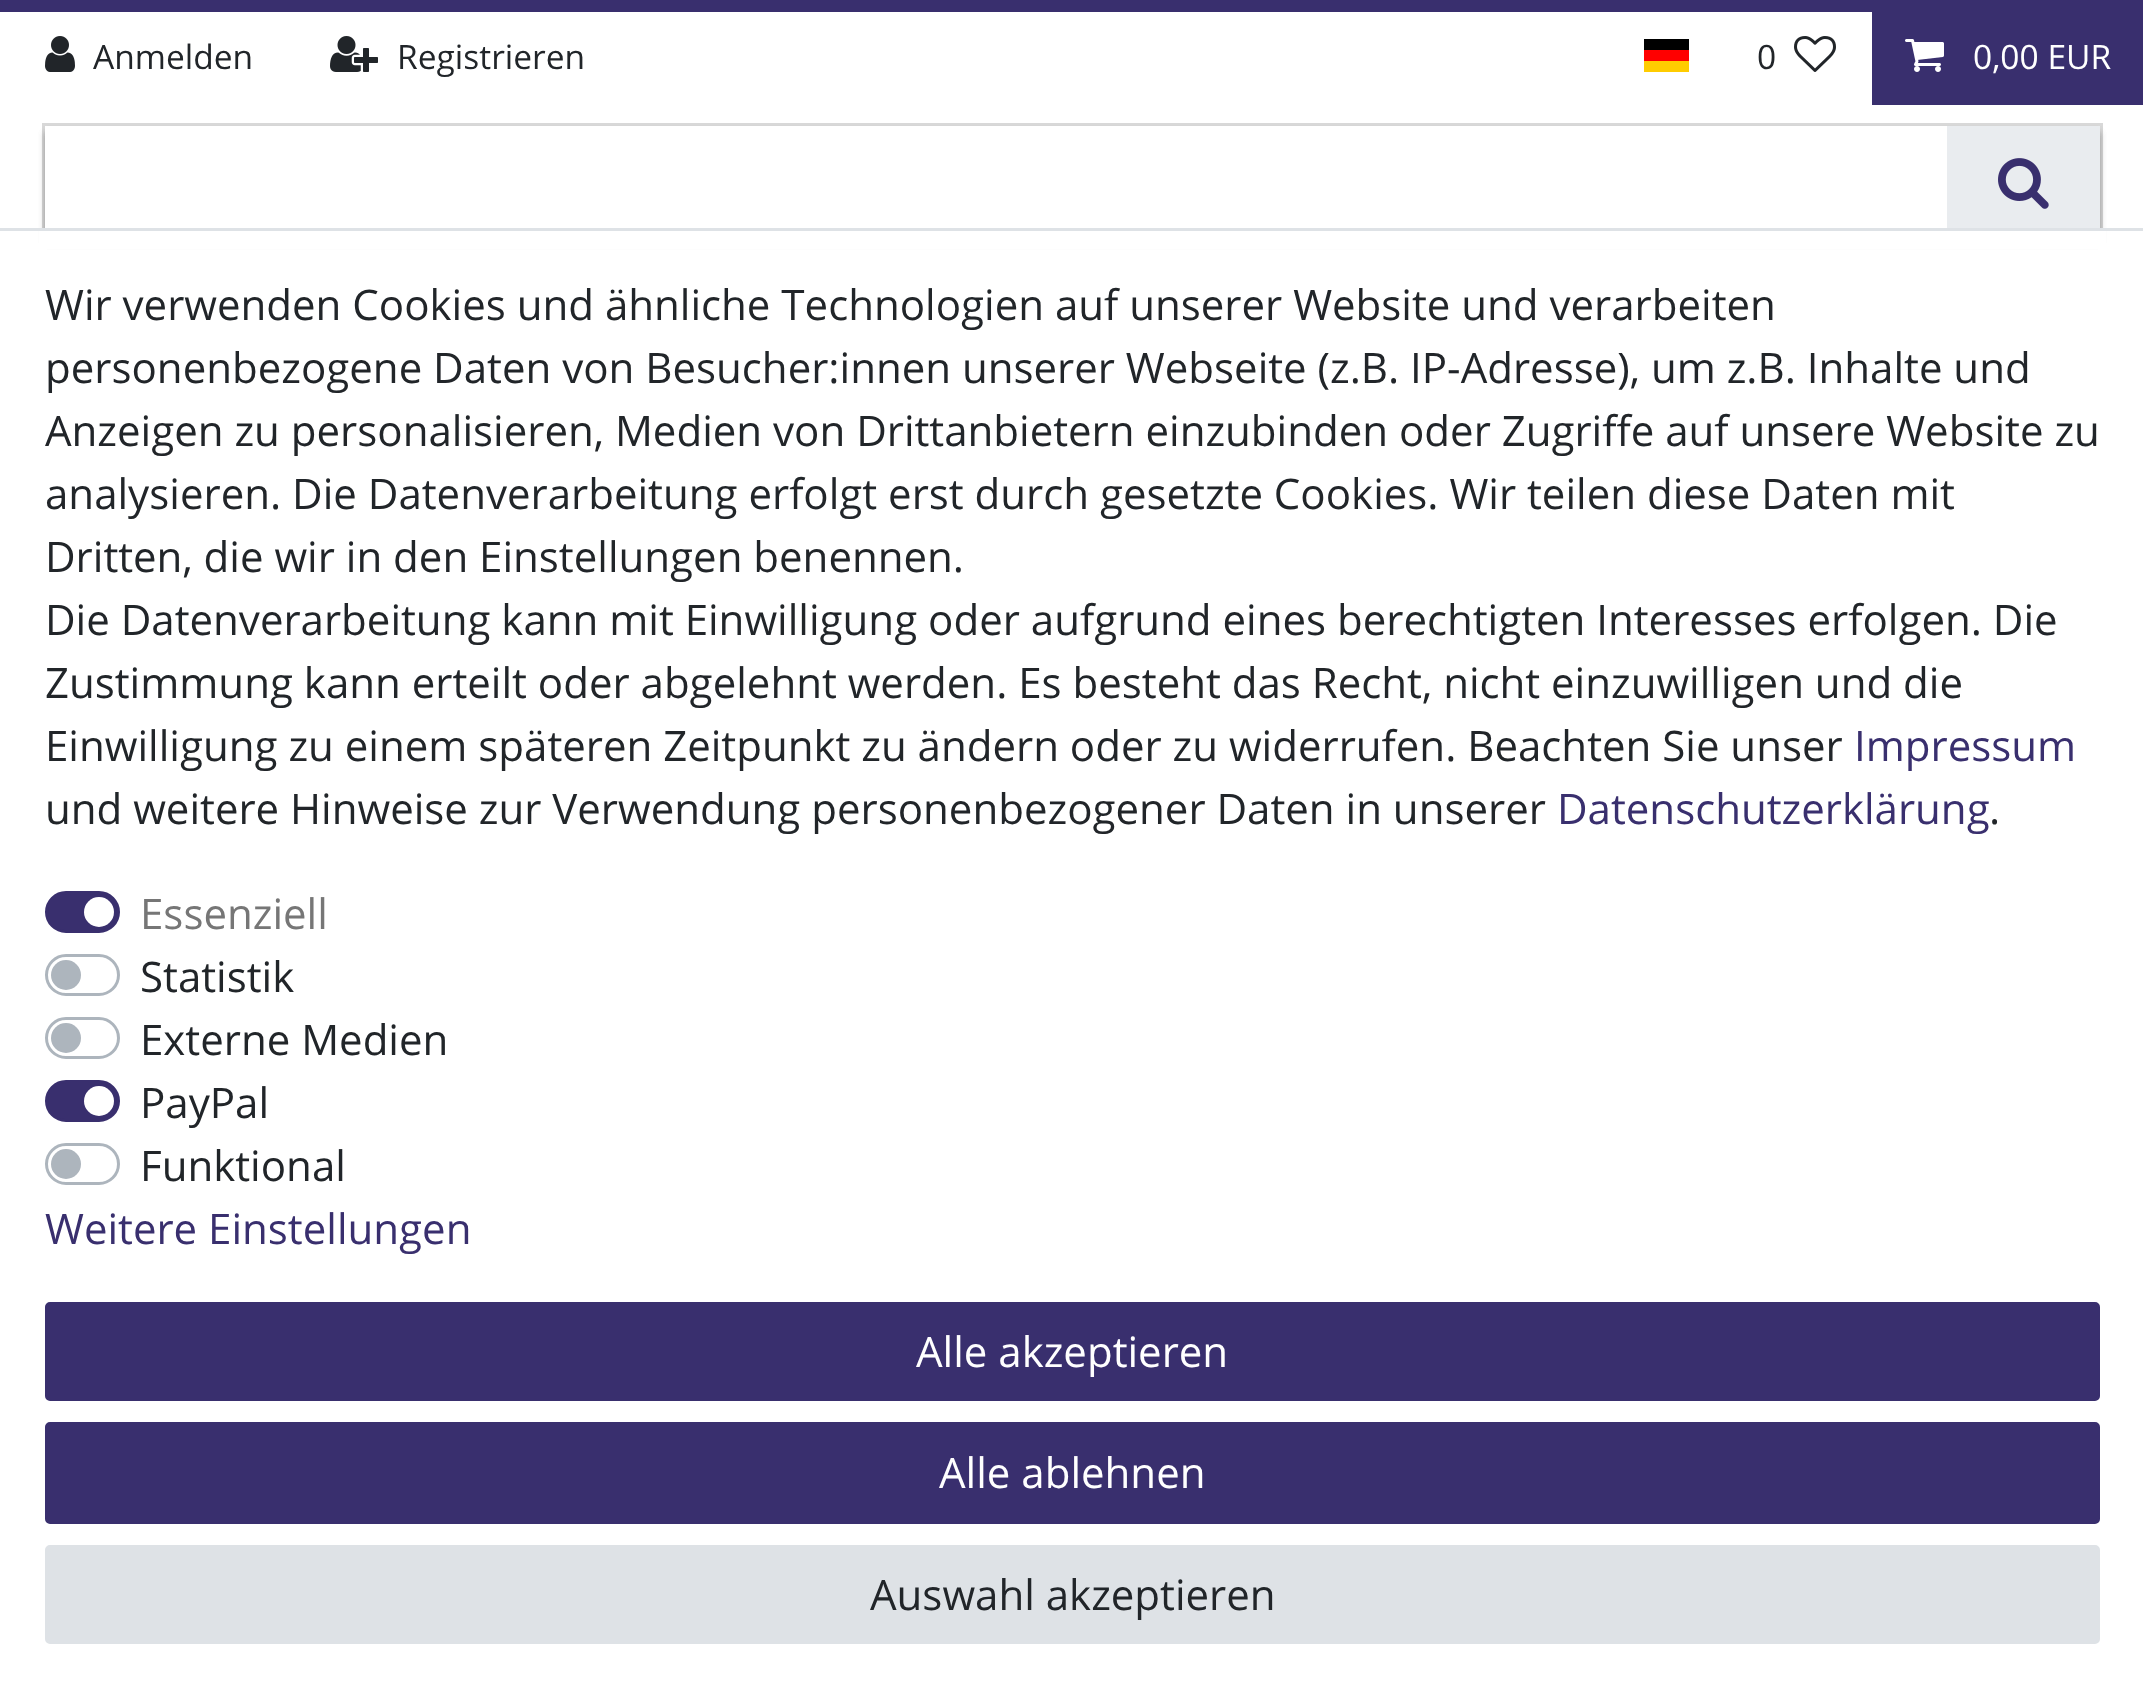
(async () => {
  const canvas = document.querySelector("canvas");
  canvas.width = 2143;
  canvas.height = 1705;
  const ctx = canvas.getContext("2d");
  ctx.miterLimit = 4;
  ctx.fontKerning = "normal";
  async function loadImage(src) {
    const img = new Image();
    img.src = src;
    await img.decode();
    return img;
  }
  let path;

  ctx.fillStyle = "#ffffff";
  ctx.fillRect(0, 0, 2143, 1705);
  ctx.fillStyle = "#392f6e";
  ctx.fillRect(0, 0, 2143, 12);
  ctx.drawImage(await loadImage("img/1.png"), 45, 36, 30, 36);
  ctx.drawImage(await loadImage("img/2.png"), 330, 36, 48, 36);
  for (const [x, y, w, h, color] of [
    [1644, 61, 45, 11, "#ffcc00"],
    [1644, 39, 45, 11, "#000000"],
    [1644, 50, 45, 11, "#ff0000"],
  ]) {
    ctx.fillStyle = color;
    ctx.fillRect(x, y, w, h);
  }
  ctx.drawImage(await loadImage("img/3.png"), 1794, 36, 42, 36);
  ctx.fillStyle = "#392f6e";
  ctx.fillRect(1872, 12, 271, 93);
  ctx.drawImage(await loadImage("img/4.png"), 1905, 39, 39, 33);
  ctx.strokeStyle = "#ebebeb";
  ctx.lineWidth = 3;
  ctx.strokeRect(43.5, 124.5, 2058, 114);
  ctx.save();
  path = new Path2D("M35 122H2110V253H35ZM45 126H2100V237H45Z");
  ctx.clip(path, "evenodd");
  ctx.fillStyle = "rgba(0, 0, 0, 0.16)";
  ctx.filter = "blur(3px)";
  ctx.beginPath();
  ctx.rect(45, 132, 2055, 111);
  ctx.fill();
  ctx.filter = "none";
  ctx.restore();
  ctx.strokeStyle = "rgba(0, 0, 0, 0.08)";
  ctx.strokeRect(43.5, 124.5, 2058, 114);
  ctx.save();
  path = new Path2D("M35 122H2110V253H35ZM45 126H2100V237H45Z");
  ctx.clip(path, "evenodd");
  ctx.fillStyle = "rgba(0, 0, 0, 0.16)";
  ctx.filter = "blur(3px)";
  ctx.beginPath();
  ctx.rect(45, 132, 2055, 111);
  ctx.fill();
  ctx.filter = "none";
  ctx.restore();
  ctx.fillStyle = "#e9ecef";
  ctx.fillRect(1947, 126, 153, 102);
  ctx.drawImage(await loadImage("img/5.png"), 1998, 158, 51, 51);
  ctx.fillStyle = "#ffffff";
  ctx.fillRect(39, 231, 2067, 18);
  ctx.fillStyle = "#dee2e6";
  ctx.fillRect(0, 228, 2143, 3);
  ctx.fillStyle = "#392f6e";
  ctx.beginPath();
  ctx.roundRect(46.5, 892.5, 72, 39, 19.5);
  ctx.fill();
  ctx.strokeStyle = "#392f6e";
  ctx.stroke();
  ctx.fillStyle = "#ffffff";
  ctx.beginPath();
  ctx.arc(99, 912, 15, 0, Math.PI * 2);
  ctx.fill();
  ctx.beginPath();
  ctx.roundRect(46.5, 955.5, 72, 39, 19.5);
  ctx.strokeStyle = "#adb5bd";
  ctx.stroke();
  ctx.fillStyle = "#adb5bd";
  ctx.beginPath();
  ctx.arc(66, 975, 15, 0, Math.PI * 2);
  ctx.fill();
  ctx.beginPath();
  ctx.roundRect(46.5, 1018.5, 72, 39, 19.5);
  ctx.stroke();
  ctx.beginPath();
  ctx.arc(66, 1038, 15, 0, Math.PI * 2);
  ctx.fill();
  ctx.fillStyle = "#392f6e";
  ctx.beginPath();
  ctx.roundRect(46.5, 1081.5, 72, 39, 19.5);
  ctx.fill();
  ctx.strokeStyle = "#392f6e";
  ctx.stroke();
  ctx.fillStyle = "#ffffff";
  ctx.beginPath();
  ctx.arc(99, 1101, 15, 0, Math.PI * 2);
  ctx.fill();
  ctx.beginPath();
  ctx.roundRect(46.5, 1144.5, 72, 39, 19.5);
  ctx.strokeStyle = "#adb5bd";
  ctx.stroke();
  ctx.fillStyle = "#adb5bd";
  ctx.beginPath();
  ctx.arc(66, 1164, 15, 0, Math.PI * 2);
  ctx.fill();
  ctx.fillStyle = "#392f6e";
  ctx.beginPath();
  ctx.roundRect(46.5, 1303.5, 2052, 96, 3.5);
  ctx.fill();
  ctx.strokeStyle = "#392f6e";
  ctx.stroke();
  ctx.beginPath();
  ctx.roundRect(46.5, 1423.5, 2052, 99, 3.5);
  ctx.fill();
  ctx.stroke();
  ctx.fillStyle = "#dee2e6";
  ctx.beginPath();
  ctx.roundRect(46.5, 1546.5, 2052, 96, 3.5);
  ctx.fill();
  ctx.strokeStyle = "#dee2e6";
  ctx.stroke();
  ctx.font = "33.5px Open Sans";
  ctx.fillStyle = "#212529";
  for (const [text, x, y] of [
    ["Anmelden", 93, 69],
    ["Registrieren", 397, 69],
    ["0", 1757, 69],
  ]) {
    ctx.fillText(text, x, y);
  }
  ctx.fillStyle = "#ffffff";
  ctx.fillText("0,00 EUR", 1973, 69);
  ctx.font = "42px Open Sans";
  ctx.fillStyle = "#212529";
  for (const [text, x, y] of [
    ["Wir verwenden Cookies und ähnliche Technologien auf unserer Website und verarbeiten", 45, 320],
    ["personenbezogene Daten von Besucher:innen unserer Webseite (z.B. IP-Adresse), um z.B. Inhalte und", 45, 383],
    ["Anzeigen zu personalisieren, Medien von Drittanbietern einzubinden oder Zugriffe auf unsere Website zu", 45, 446],
    ["analysieren. Die Datenverarbeitung erfolgt erst durch gesetzte Cookies. Wir teilen diese Daten mit", 45, 509],
    ["Dritten, die wir in den Einstellungen benennen.", 45, 572],
    ["Die Datenverarbeitung kann mit Einwilligung oder aufgrund eines berechtigten Interesses erfolgen. Die", 45, 635],
    ["Zustimmung kann erteilt oder abgelehnt werden. Es besteht das Recht, nicht einzuwilligen und die", 45, 698],
    ["Einwilligung zu einem späteren Zeitpunkt zu ändern oder zu widerrufen. Beachten Sie unser", 45, 761],
  ]) {
    ctx.fillText(text, x, y);
  }
  ctx.fillStyle = "#392f6e";
  ctx.fillText("Impressum", 1854, 761);
  ctx.fillStyle = "#212529";
  ctx.fillText("und weitere Hinweise zur Verwendung personenbezogener Daten in unserer", 45, 824);
  ctx.fillStyle = "#392f6e";
  ctx.fillText("Datenschutzerklärung", 1557, 824);
  ctx.fillStyle = "#212529";
  ctx.fillText(".", 1989, 824);
  ctx.fillStyle = "#767676";
  ctx.fillText("Essenziell", 140, 929);
  ctx.fillStyle = "#212529";
  for (const [text, x, y] of [
    ["Statistik", 140, 992],
    ["Externe Medien", 140, 1055],
    ["PayPal", 140, 1118],
    ["Funktional", 140, 1181],
  ]) {
    ctx.fillText(text, x, y);
  }
  ctx.fillStyle = "#392f6e";
  ctx.fillText("Weitere Einstellungen", 45, 1244);
  ctx.fillStyle = "#ffffff";
  ctx.fillText("Alle akzeptieren", 916, 1367);
  ctx.fillText("Alle ablehnen", 939, 1488);
  ctx.fillStyle = "#212529";
  ctx.fillText("Auswahl akzeptieren", 870, 1610);
})();
